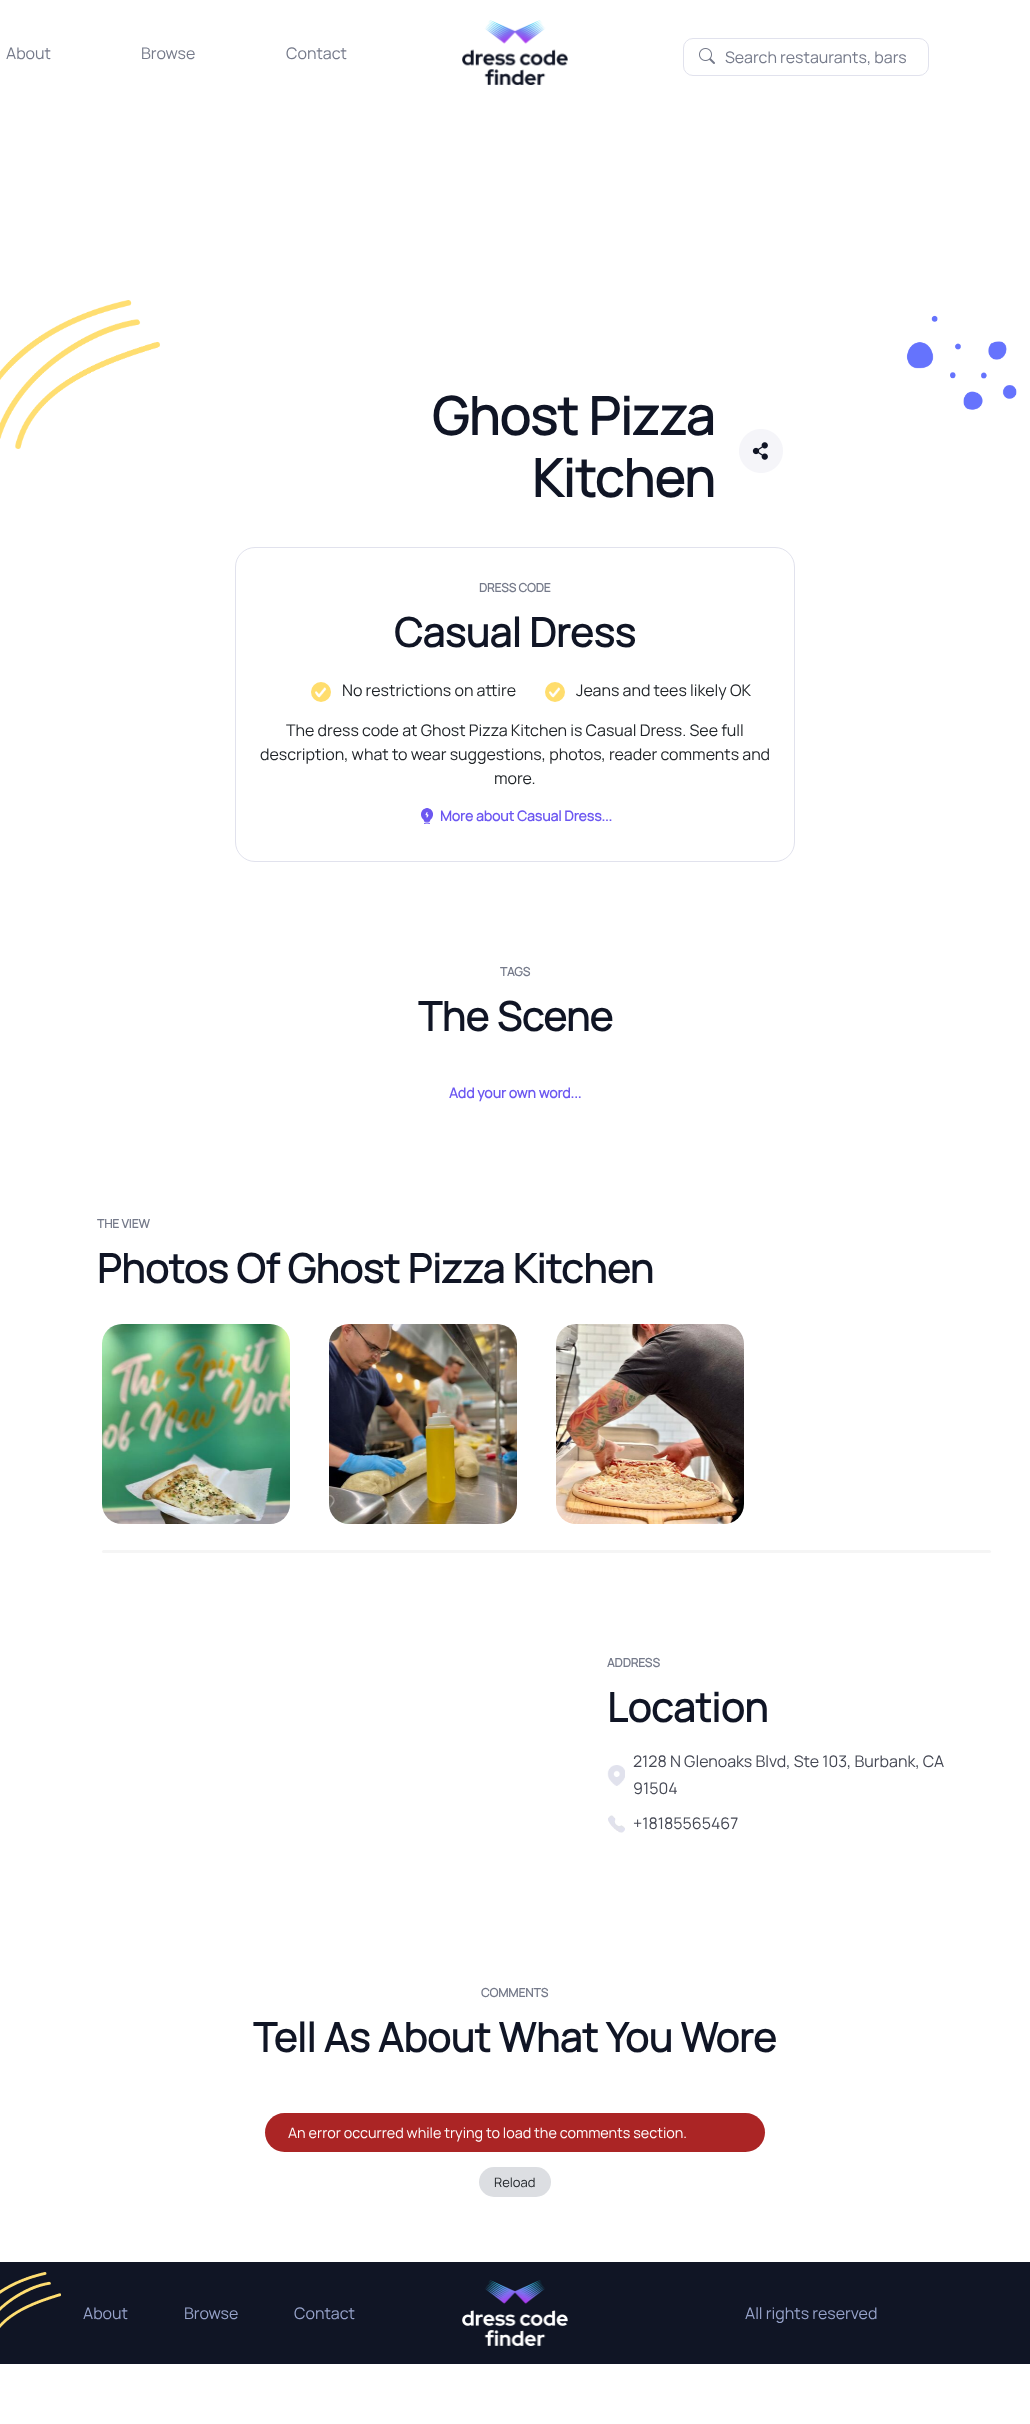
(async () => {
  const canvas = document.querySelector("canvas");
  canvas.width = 1030;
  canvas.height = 2424;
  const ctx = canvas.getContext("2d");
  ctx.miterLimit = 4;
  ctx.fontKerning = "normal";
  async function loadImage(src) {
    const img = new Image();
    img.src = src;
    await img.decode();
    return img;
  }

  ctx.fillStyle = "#ffffff";
  ctx.fillRect(0, 0, 1030, 2424);
  ctx.drawImage(await loadImage("img/1.png"), 462, 20, 106, 65);
  ctx.beginPath();
  ctx.roundRect(683.5, 38.5, 245, 37, 9.5);
  ctx.strokeStyle = "#e1e2ed";
  ctx.stroke();
  ctx.drawImage(await loadImage("img/2.png"), 699, 48, 16, 16);
  ctx.drawImage(await loadImage("img/3.png"), 0, 300, 160, 149);
  ctx.drawImage(await loadImage("img/4.png"), 906, 315, 111, 95);
  ctx.drawImage(await loadImage("img/5.png"), 739, 429, 44, 44);
  ctx.beginPath();
  ctx.roundRect(235.5, 547.5, 559, 314, 19.5);
  ctx.stroke();
  ctx.fillStyle = "#ffdd6d";
  ctx.beginPath();
  ctx.arc(321, 692, 10, 0, Math.PI * 2);
  ctx.fill();
  ctx.drawImage(await loadImage("img/6.png"), 315, 687, 12, 11);
  ctx.beginPath();
  ctx.arc(555, 692, 10, 0, Math.PI * 2);
  ctx.fill();
  ctx.drawImage(await loadImage("img/7.png"), 549, 687, 12, 11);
  ctx.drawImage(await loadImage("img/8.png"), 421, 808, 12, 16);
  ctx.drawImage(await loadImage("img/9.png"), 102, 1324, 188, 200);
  ctx.drawImage(await loadImage("img/10.png"), 329, 1324, 188, 200);
  ctx.drawImage(await loadImage("img/11.png"), 556, 1324, 188, 200);
  ctx.fillStyle = "#f5f5f5";
  ctx.beginPath();
  ctx.roundRect(102, 1550, 889, 3, 1.5);
  ctx.fill();
  ctx.drawImage(await loadImage("img/12.png"), 607, 1765, 18, 21);
  ctx.drawImage(await loadImage("img/13.png"), 608, 1815, 17, 18);
  ctx.fillStyle = "#ab2525";
  ctx.beginPath();
  ctx.roundRect(265, 2113, 500, 39, 19.5);
  ctx.fill();
  ctx.fillStyle = "#dcdee2";
  ctx.beginPath();
  ctx.roundRect(479, 2167, 72, 30, 15);
  ctx.fill();
  ctx.fillStyle = "#101525";
  ctx.fillRect(0, 2262, 1030, 102);
  ctx.drawImage(await loadImage("img/14.png"), 0, 2272, 61, 56);
  ctx.drawImage(await loadImage("img/15.png"), 462, 2280, 106, 66);
  ctx.font = "200 16px Manrope";
  ctx.fillStyle = "#757a8a";
  for (const [text, x, y] of [
    ["About", 6, 59],
    ["Browse", 141, 59],
    ["Contact", 286, 59],
    ["Search restaurants, bars", 725, 63],
  ]) {
    ctx.fillText(text, x, y);
  }
  ctx.font = "bold 52px Manrope";
  ctx.fillStyle = "#101525";
  ctx.fillText("Ghost Pizza", 432, 435);
  ctx.fillText("Kitchen", 532, 497);
  ctx.font = "bold 12px Manrope";
  ctx.fillStyle = "#757a8a";
  ctx.fillText("DRESS CODE", 479, 592);
  ctx.font = "bold 40px Manrope";
  ctx.fillStyle = "#101525";
  ctx.fillText("Casual Dress", 394, 647);
  ctx.font = "200 16px Manrope";
  ctx.fillStyle = "#212529";
  for (const [text, x, y] of [
    ["No restrictions on attire", 342, 696],
    ["Jeans and tees likely OK", 576, 696],
    ["The dress code at Ghost Pizza Kitchen is Casual Dress. See full", 286, 736],
    ["description, what to wear suggestions, photos, reader comments and", 260, 760],
    ["more.", 494, 784],
  ]) {
    ctx.fillText(text, x, y);
  }
  ctx.font = "bold 14px Manrope";
  ctx.fillStyle = "#6c57f1";
  ctx.fillText("More about Casual Dress...", 440, 821);
  ctx.font = "bold 12px Manrope";
  ctx.fillStyle = "#757a8a";
  ctx.fillText("TAGS", 500, 976);
  ctx.font = "bold 40px Manrope";
  ctx.fillStyle = "#101525";
  ctx.fillText("The Scene", 418, 1031);
  ctx.font = "bold 14px Manrope";
  ctx.fillStyle = "#6c57f1";
  ctx.fillText("Add your own word...", 449, 1098);
  ctx.font = "bold 12px Manrope";
  ctx.fillStyle = "#757a8a";
  ctx.fillText("THE VIEW", 97, 1228);
  ctx.font = "bold 40px Manrope";
  ctx.fillStyle = "#101525";
  ctx.fillText("Photos Of Ghost Pizza Kitchen", 97, 1283);
  ctx.font = "bold 12px Manrope";
  ctx.fillStyle = "#757a8a";
  ctx.fillText("ADDRESS", 607, 1667);
  ctx.font = "bold 40px Manrope";
  ctx.fillStyle = "#101525";
  ctx.fillText("Location", 607, 1722);
  ctx.font = "200 16px Manrope";
  ctx.fillStyle = "#454854";
  for (const [text, x, y] of [
    ["2128 N Glenoaks Blvd, Ste 103, Burbank, CA", 633, 1767],
    ["91504", 633, 1794],
    ["+18185565467", 633, 1829],
  ]) {
    ctx.fillText(text, x, y);
  }
  ctx.font = "bold 12px Manrope";
  ctx.fillStyle = "#757a8a";
  ctx.fillText("COMMENTS", 481, 1997);
  ctx.font = "bold 40px Manrope";
  ctx.fillStyle = "#101525";
  ctx.fillText("Tell As About What You Wore", 253, 2052);
  ctx.font = "200 14.4px Manrope";
  ctx.fillStyle = "#ffffff";
  ctx.fillText("An error occurred while trying to load the comments section.", 288, 2138);
  ctx.font = "200 13px Manrope";
  ctx.fillStyle = "#212529";
  ctx.fillText("Reload", 494, 2187);
  ctx.font = "200 16px Manrope";
  ctx.fillStyle = "#97a3ca";
  for (const [text, x, y] of [
    ["About", 83, 2319],
    ["Browse", 184, 2319],
    ["Contact", 294, 2319],
    ["All rights reserved", 745, 2319],
  ]) {
    ctx.fillText(text, x, y);
  }
})();
